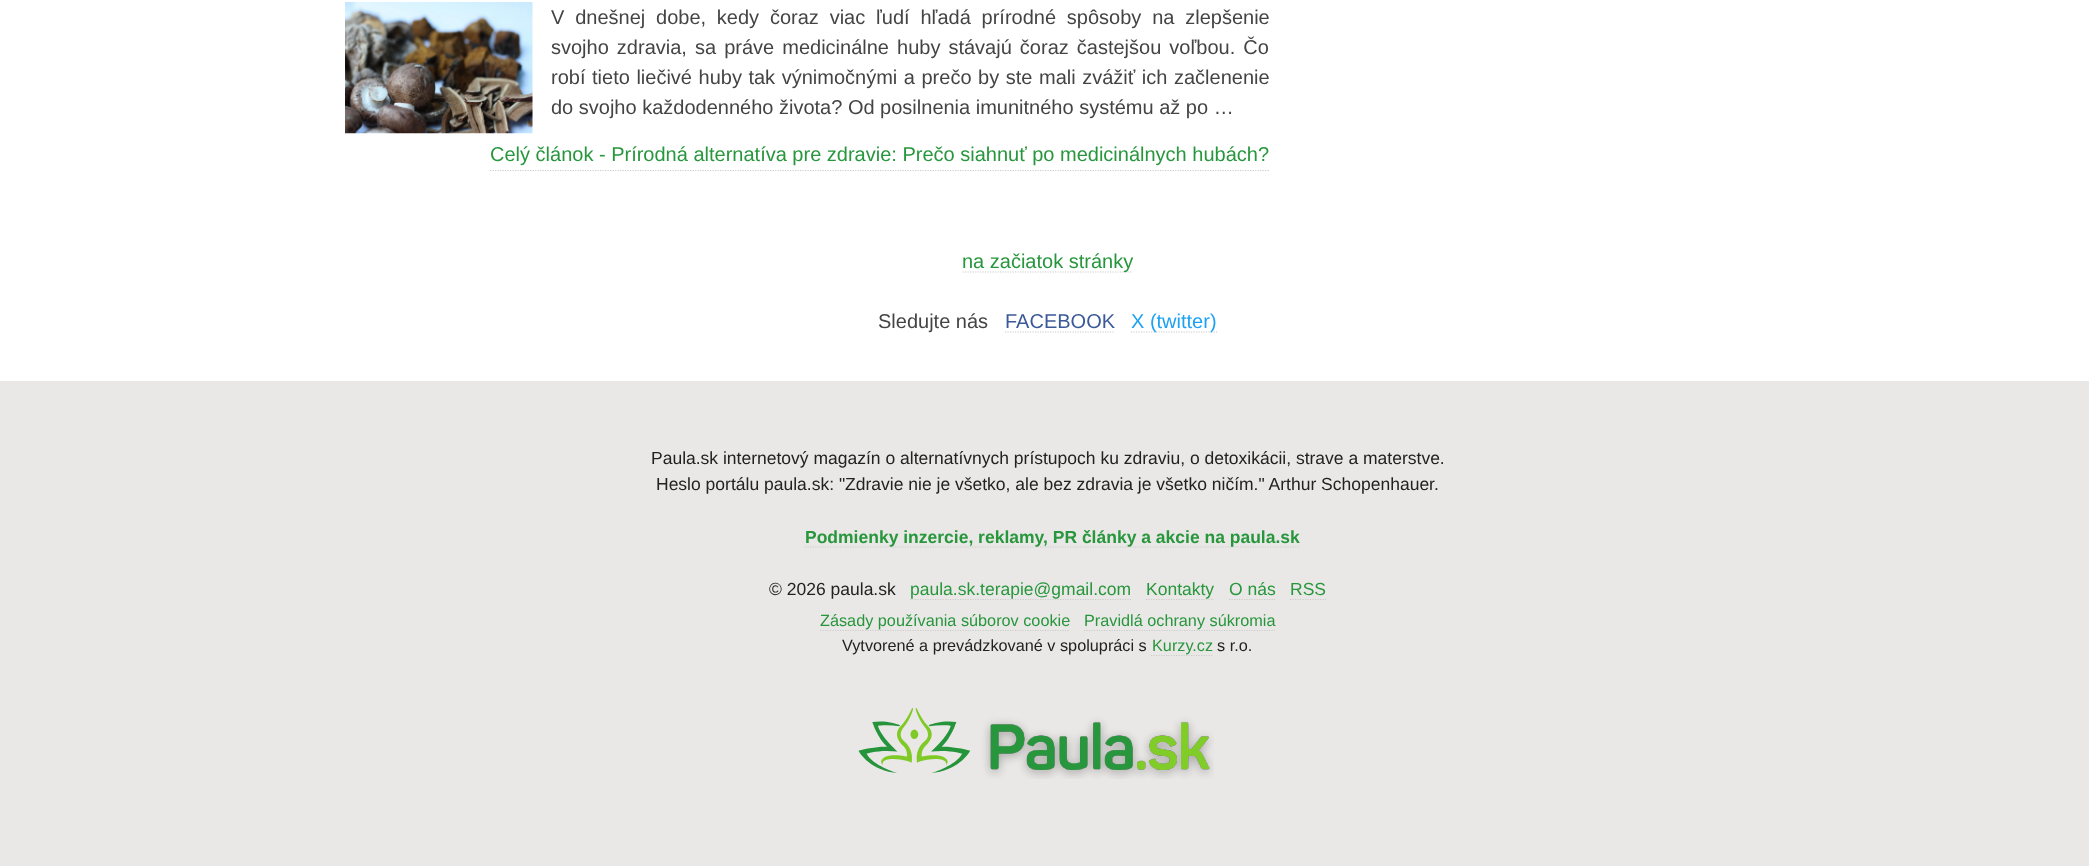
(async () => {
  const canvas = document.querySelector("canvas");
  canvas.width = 2089;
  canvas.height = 866;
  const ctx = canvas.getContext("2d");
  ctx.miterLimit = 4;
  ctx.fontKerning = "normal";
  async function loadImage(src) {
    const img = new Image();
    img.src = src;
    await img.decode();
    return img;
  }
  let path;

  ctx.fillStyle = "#ffffff";
  ctx.fillRect(0, 0, 2089, 866);
  ctx.drawImage(await loadImage("img/1.png"), 345, 2, 188, 132);
  path = new Path2D("M490 170.5H1269");
  ctx.strokeStyle = "#cccccc";
  ctx.lineWidth = 1.2;
  ctx.setLineDash([1.25, 1.25]);
  ctx.stroke(path);
  path = new Path2D("M962.5 272H1132.5");
  ctx.stroke(path);
  path = new Path2D("M1005 332H1115");
  ctx.stroke(path);
  path = new Path2D("M1131 332H1217.5");
  ctx.stroke(path);
  ctx.fillStyle = "#e9e8e6";
  ctx.fillRect(0, 381, 2089, 485);
  path = new Path2D("M805 547H1300");
  ctx.stroke(path);
  path = new Path2D("M910 599.5H1131");
  ctx.stroke(path);
  path = new Path2D("M1146 599.5H1214");
  ctx.stroke(path);
  path = new Path2D("M1229 599.5H1275");
  ctx.stroke(path);
  path = new Path2D("M1290 599.5H1326");
  ctx.stroke(path);
  path = new Path2D("M820 630.5H1070");
  ctx.stroke(path);
  path = new Path2D("M1084 630.5H1275");
  ctx.stroke(path);
  path = new Path2D("M1151 655.5H1212.5");
  ctx.stroke(path);
  ctx.drawImage(await loadImage("img/2.png"), 858, 708, 356, 71);
  ctx.wordSpacing = "5.25px";
  ctx.font = "20px Liberation Sans";
  ctx.fillStyle = "#444444";
  ctx.fillText("V dnešnej dobe, kedy čoraz viac ľudí hľadá prírodné spôsoby na zlepšenie", 551, 24);
  ctx.wordSpacing = "2.5px";
  ctx.fillText("svojho zdravia, sa práve medicinálne huby stávajú čoraz častejšou voľbou. Čo", 551, 54);
  ctx.wordSpacing = "1px";
  ctx.fillText("robí tieto liečivé huby tak výnimočnými a prečo by ste mali zvážiť ich začlenenie", 551, 84);
  ctx.wordSpacing = "0px";
  ctx.fillText("do svojho každodenného života? Od posilnenia imunitného systému až po …", 551, 114);
  ctx.fillStyle = "#27963c";
  ctx.fillText("Celý článok - Prírodná alternatíva pre zdravie: Prečo siahnuť po medicinálnych hubách?", 490, 161);
  ctx.fillText("na začiatok stránky", 962, 268);
  ctx.fillStyle = "#444444";
  ctx.fillText("Sledujte nás", 878, 328);
  ctx.fillStyle = "#3b5998";
  ctx.fillText("FACEBOOK", 1005, 328);
  ctx.fillStyle = "#1da1f2";
  ctx.fillText("X (twitter)", 1131, 328);
  ctx.font = "17.5px Liberation Sans";
  ctx.fillStyle = "#222222";
  ctx.fillText("Paula.sk internetový magazín o alternatívnych prístupoch ku zdraviu, o detoxikácii, strave a materstve.", 651, 464);
  ctx.fillText("Heslo portálu paula.sk: \"Zdravie nie je všetko, ale bez zdravia je všetko ničím.\" Arthur Schopenhauer.", 656, 490);
  ctx.font = "bold 17.5px Liberation Sans";
  ctx.fillStyle = "#27963c";
  ctx.fillText("Podmienky inzercie, reklamy, PR články a akcie na paula.sk", 805, 543);
  ctx.font = "17.5px Liberation Sans";
  ctx.fillStyle = "#222222";
  ctx.fillText("© 2026 paula.sk", 769, 595);
  ctx.fillStyle = "#27963c";
  for (const [text, x, y] of [
    ["paula.sk.terapie@gmail.com", 910, 595],
    ["Kontakty", 1146, 595],
    ["O nás", 1229, 595],
    ["RSS", 1290, 595],
  ]) {
    ctx.fillText(text, x, y);
  }
  ctx.font = "16.25px Liberation Sans";
  ctx.fillText("Zásady používania súborov cookie", 820, 626);
  ctx.fillText("Pravidlá ochrany súkromia", 1084, 626);
  ctx.fillStyle = "#222222";
  ctx.fillText("Vytvorené a prevádzkované v spolupráci s", 842, 651);
  ctx.fillStyle = "#27963c";
  ctx.fillText("Kurzy.cz", 1152, 651);
  ctx.fillStyle = "#222222";
  ctx.fillText("s r.o.", 1217, 651);
})();
